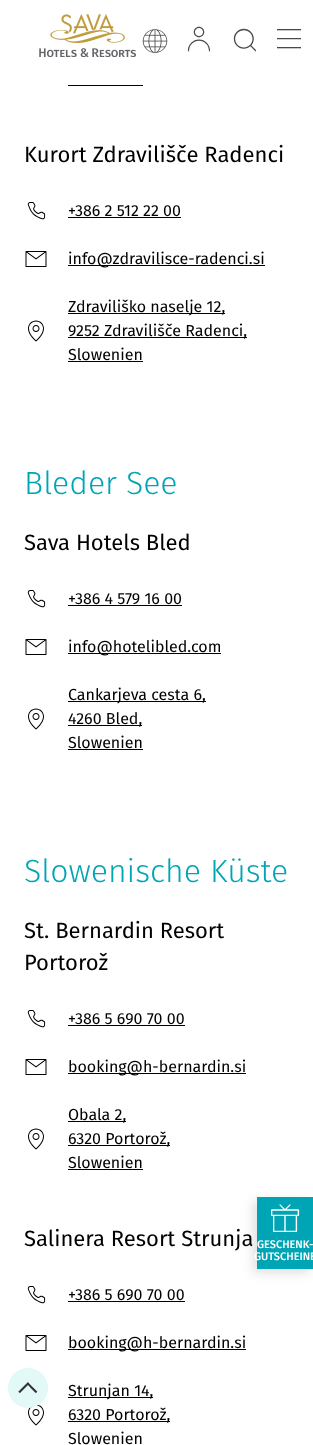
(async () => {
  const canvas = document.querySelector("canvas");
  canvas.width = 313;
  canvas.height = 1445;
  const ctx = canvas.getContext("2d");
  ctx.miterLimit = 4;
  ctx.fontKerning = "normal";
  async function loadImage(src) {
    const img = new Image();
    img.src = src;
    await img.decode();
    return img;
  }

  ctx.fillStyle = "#ffffff";
  ctx.fillRect(0, 0, 313, 1445);
  ctx.drawImage(await loadImage("img/1.png"), 39, 14, 97, 43);
  ctx.drawImage(await loadImage("img/2.png"), 142, 29, 26, 24);
  ctx.drawImage(await loadImage("img/3.png"), 187, 26, 24, 26);
  ctx.drawImage(await loadImage("img/4.png"), 233, 28, 24, 24);
  ctx.drawImage(await loadImage("img/5.png"), 277, 29, 24, 20);
  ctx.fillStyle = "#000000";
  ctx.fillRect(68, 85, 75, 1);
  ctx.drawImage(await loadImage("img/6.png"), 27, 202, 19, 18);
  ctx.fillRect(68, 217, 113, 1);
  ctx.drawImage(await loadImage("img/7.png"), 25, 251, 22, 16);
  ctx.fillRect(68, 265, 197, 1);
  ctx.drawImage(await loadImage("img/8.png"), 28, 320, 16, 22);
  for (const [x, y, w, h, color] of [
    [68, 313, 157, 1, "#000000"],
    [68, 337, 179, 1, "#000000"],
    [68, 361, 75, 1, "#000000"],
  ]) {
    ctx.fillStyle = color;
    ctx.fillRect(x, y, w, h);
  }
  ctx.drawImage(await loadImage("img/9.png"), 27, 590, 19, 18);
  ctx.fillRect(68, 605, 114, 1);
  ctx.drawImage(await loadImage("img/7.png"), 25, 639, 22, 16);
  ctx.fillRect(68, 653, 153, 1);
  ctx.drawImage(await loadImage("img/10.png"), 28, 708, 16, 22);
  for (const [x, y, w, h, color] of [
    [68, 701, 138, 1, "#000000"],
    [68, 725, 74, 1, "#000000"],
    [68, 749, 75, 1, "#000000"],
  ]) {
    ctx.fillStyle = color;
    ctx.fillRect(x, y, w, h);
  }
  ctx.drawImage(await loadImage("img/9.png"), 27, 1010, 19, 18);
  ctx.fillRect(68, 1025, 117, 1);
  ctx.drawImage(await loadImage("img/7.png"), 25, 1059, 22, 16);
  ctx.fillRect(68, 1073, 178, 1);
  ctx.drawImage(await loadImage("img/8.png"), 28, 1128, 16, 22);
  for (const [x, y, w, h, color] of [
    [68, 1121, 58, 1, "#000000"],
    [68, 1145, 102, 1, "#000000"],
    [68, 1169, 75, 1, "#000000"],
  ]) {
    ctx.fillStyle = color;
    ctx.fillRect(x, y, w, h);
  }
  ctx.drawImage(await loadImage("img/9.png"), 27, 1286, 19, 18);
  ctx.fillRect(68, 1301, 117, 1);
  ctx.drawImage(await loadImage("img/7.png"), 25, 1335, 22, 16);
  ctx.fillRect(68, 1349, 178, 1);
  ctx.drawImage(await loadImage("img/11.png"), 28, 1405, 16, 21);
  ctx.fillRect(68, 1397, 85, 1);
  ctx.fillRect(68, 1421, 102, 1);
  ctx.fillStyle = "rgba(0, 0, 0, 0.12)";
  ctx.filter = "blur(5.5px)";
  ctx.beginPath();
  ctx.rect(253, 1201, 56, 72);
  ctx.fill();
  ctx.filter = "none";
  ctx.fillStyle = "#00a5b5";
  ctx.fillRect(257, 1197, 56, 72);
  ctx.drawImage(await loadImage("img/12.png"), 271, 1204, 29, 28);
  ctx.drawImage(await loadImage("img/13.png"), 8, 1368, 40, 40);
  ctx.font = "22px Fira Sans";
  ctx.fillStyle = "#000000";
  ctx.fillText("Kurort Zdravilišče Radenci", 24, 162);
  ctx.font = "16px Fira Sans";
  for (const [text, x, y] of [
    ["+386 2 512 22 00", 68, 216],
    ["info@zdravilisce-radenci.si", 68, 264],
    ["Zdraviliško naselje 12,", 68, 312],
    ["9252 Zdravilišče Radenci,", 68, 336],
    ["Slowenien", 68, 360],
  ]) {
    ctx.fillText(text, x, y);
  }
  ctx.font = "300 32px Fira Sans";
  ctx.fillStyle = "#00a5b5";
  ctx.fillText("Bleder See", 24, 494);
  ctx.font = "22px Fira Sans";
  ctx.fillStyle = "#000000";
  ctx.fillText("Sava Hotels Bled", 24, 550);
  ctx.font = "16px Fira Sans";
  for (const [text, x, y] of [
    ["+386 4 579 16 00", 68, 604],
    ["info@hotelibled.com", 68, 652],
    ["Cankarjeva cesta 6,", 68, 700],
    ["4260 Bled,", 68, 724],
    ["Slowenien", 68, 748],
  ]) {
    ctx.fillText(text, x, y);
  }
  ctx.font = "300 32px Fira Sans";
  ctx.fillStyle = "#00a5b5";
  ctx.fillText("Slowenische Küste", 24, 882);
  ctx.font = "22px Fira Sans";
  ctx.fillStyle = "#000000";
  ctx.fillText("St. Bernardin Resort", 24, 938);
  ctx.fillText("Portorož", 24, 970);
  ctx.font = "16px Fira Sans";
  for (const [text, x, y] of [
    ["+386 5 690 70 00", 68, 1024],
    ["booking@h-bernardin.si", 68, 1072],
    ["Obala 2,", 68, 1120],
    ["6320 Portorož,", 68, 1144],
    ["Slowenien", 68, 1168],
  ]) {
    ctx.fillText(text, x, y);
  }
  ctx.font = "22px Fira Sans";
  ctx.fillText("Salinera Resort Strunja", 24, 1246);
  ctx.font = "16px Fira Sans";
  for (const [text, x, y] of [
    ["+386 5 690 70 00", 68, 1300],
    ["booking@h-bernardin.si", 68, 1348],
    ["Strunjan 14,", 68, 1396],
    ["6320 Portorož,", 68, 1420],
    ["Slowenien", 68, 1444],
  ]) {
    ctx.fillText(text, x, y);
  }
  ctx.font = "500 11px Fira Sans";
  ctx.fillStyle = "#ffffff";
  ctx.fillText("GESCHENK-", 257, 1248);
  ctx.fillText("GUTSCHEINE", 254, 1260);
})();
